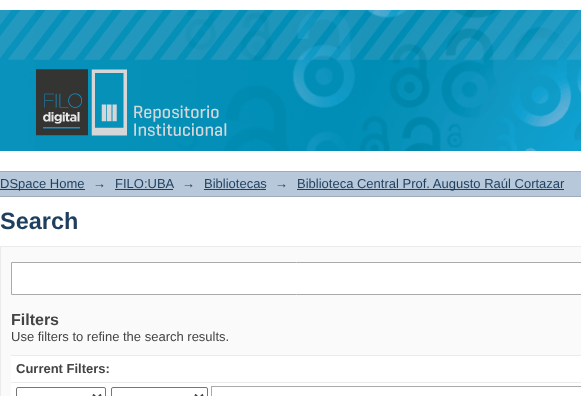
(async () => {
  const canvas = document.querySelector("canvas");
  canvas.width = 581;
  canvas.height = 396;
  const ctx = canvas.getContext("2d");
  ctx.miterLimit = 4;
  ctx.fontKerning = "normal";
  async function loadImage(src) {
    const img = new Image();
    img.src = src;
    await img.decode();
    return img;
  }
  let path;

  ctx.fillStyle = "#ffffff";
  ctx.fillRect(0, 0, 581, 396);
  ctx.drawImage(await loadImage("img/1.png"), 0, 10, 581, 141);
  for (const [x, y, w, h, color] of [
    [0, 172, 581, 24, "#b6c8d9"],
    [0, 171, 581, 1, "#9cacba"],
    [0, 196, 581, 1, "#9cacba"],
    [0, 189, 85, 1, "#1f3f5e"],
    [115, 189, 58, 1, "#1f3f5e"],
    [204, 189, 62, 1, "#1f3f5e"],
    [297, 189, 267, 1, "#1f3f5e"],
  ]) {
    ctx.fillStyle = color;
    ctx.fillRect(x, y, w, h);
  }
  ctx.fillStyle = "#fafafa";
  ctx.beginPath();
  ctx.rect(0.5, 246.5, 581, 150);
  ctx.fill();
  ctx.strokeStyle = "#ebebeb";
  ctx.stroke();
  ctx.fillStyle = "#ffffff";
  ctx.beginPath();
  ctx.rect(11.5, 262.5, 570, 32);
  ctx.fill();
  ctx.strokeStyle = "#aaaaaa";
  ctx.stroke();
  for (const [x, y, w, h, color] of [
    [11, 356, 570, 40, "#ffffff"],
    [11, 355, 570, 1, "#ebebeb"],
    [11, 382, 570, 1, "#ebebeb"],
  ]) {
    ctx.fillStyle = color;
    ctx.fillRect(x, y, w, h);
  }
  ctx.beginPath();
  ctx.roundRect(16.5, 387.5, 89, 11, 1.5);
  ctx.strokeStyle = "#767676";
  ctx.stroke();
  path = new Path2D("M93 394.5L97 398.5L101 394.5");
  ctx.strokeStyle = "#444444";
  ctx.lineWidth = 2;
  ctx.stroke(path);
  ctx.beginPath();
  ctx.roundRect(111.5, 387.5, 96, 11, 1.5);
  ctx.strokeStyle = "#767676";
  ctx.lineWidth = 1;
  ctx.stroke();
  path = new Path2D("M195 394.5L199 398.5L203 394.5");
  ctx.strokeStyle = "#444444";
  ctx.lineWidth = 2;
  ctx.stroke(path);
  ctx.strokeStyle = "#aaaaaa";
  ctx.lineWidth = 1;
  ctx.strokeRect(211.5, 386.5, 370, 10);
  ctx.font = "13px Liberation Sans";
  ctx.fillStyle = "#1f3f5e";
  for (const [text, x, y] of [
    ["DSpace Home", 0, 188],
    ["→", 93, 188],
    ["FILO:UBA", 115, 188],
    ["→", 182, 188],
    ["Bibliotecas", 204, 188],
    ["→", 275, 188],
    ["Biblioteca Central Prof. Augusto Raúl Cortazar", 297, 188],
  ]) {
    ctx.fillText(text, x, y);
  }
  ctx.font = "bold 23.5px Liberation Sans";
  ctx.fillText("Search", 0, 229);
  ctx.font = "bold 16px Liberation Sans";
  ctx.fillStyle = "#444444";
  ctx.fillText("Filters", 11, 325);
  ctx.font = "13px Liberation Sans";
  ctx.fillText("Use filters to refine the search results.", 11, 341);
  ctx.font = "bold 13px Liberation Sans";
  ctx.fillText("Current Filters:", 16, 373);
})();
